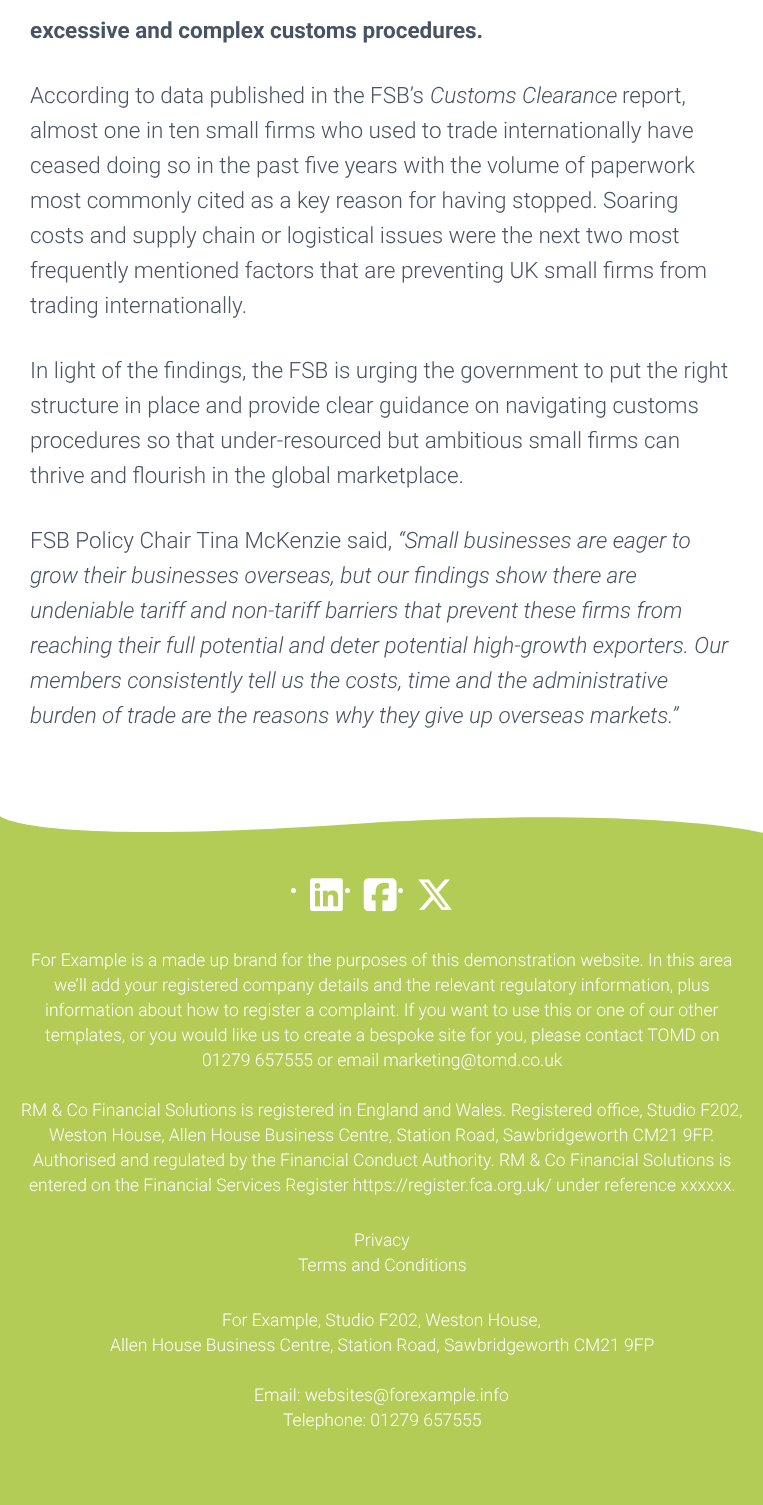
(async () => {
  const canvas = document.querySelector("canvas");
  canvas.width = 763;
  canvas.height = 1505;
  const ctx = canvas.getContext("2d");
  ctx.miterLimit = 4;
  ctx.fontKerning = "normal";
  async function loadImage(src) {
    const img = new Image();
    img.src = src;
    await img.decode();
    return img;
  }
  let path;

  ctx.fillStyle = "#ffffff";
  ctx.fillRect(0, 0, 763, 1505);
  ctx.fillStyle = "#b2cc56";
  path = new Path2D("M0 833V816C0 816 26 845 338 825C651 804 763 833 763 833Z");
  ctx.fill(path);
  ctx.fillRect(0, 833, 763, 672);
  ctx.fillStyle = "#ffffff";
  ctx.beginPath();
  ctx.arc(293.5, 890.5, 2.5, 0, Math.PI * 2);
  ctx.fill();
  ctx.drawImage(await loadImage("img/1.png"), 310, 878, 33, 34);
  ctx.beginPath();
  ctx.arc(347.5, 890.5, 2.5, 0, Math.PI * 2);
  ctx.fill();
  ctx.drawImage(await loadImage("img/2.png"), 363, 878, 34, 34);
  ctx.beginPath();
  ctx.arc(400.5, 890.5, 2.5, 0, Math.PI * 2);
  ctx.fill();
  ctx.drawImage(await loadImage("img/3.png"), 418, 879, 34, 31);
  ctx.font = "bold 22.5px Roboto";
  ctx.fillStyle = "#485464";
  ctx.fillText("excessive and complex customs procedures.", 30, 38);
  ctx.font = "300 22.5px Roboto";
  ctx.fillText("According to data published in the FSB’s", 30, 103);
  ctx.font = "italic 300 22.5px Roboto";
  ctx.fillText("Customs Clearance", 430, 103);
  ctx.font = "300 22.5px Roboto";
  for (const [text, x, y] of [
    ["report,", 622, 103],
    ["almost one in ten small firms who used to trade internationally have", 30, 138],
    ["ceased doing so in the past five years with the volume of paperwork", 30, 173],
    ["most commonly cited as a key reason for having stopped. Soaring", 30, 208],
    ["costs and supply chain or logistical issues were the next two most", 30, 243],
    ["frequently mentioned factors that are preventing UK small firms from", 30, 278],
    ["trading internationally.", 30, 313],
    ["In light of the findings, the FSB is urging the government to put the right", 30, 378],
    ["structure in place and provide clear guidance on navigating customs", 30, 413],
    ["procedures so that under-resourced but ambitious small firms can", 30, 448],
    ["thrive and flourish in the global marketplace.", 30, 483],
    ["FSB Policy Chair Tina McKenzie said,", 30, 548],
  ]) {
    ctx.fillText(text, x, y);
  }
  ctx.font = "italic 300 22.5px Roboto";
  for (const [text, x, y] of [
    ["“Small businesses are eager to", 398, 548],
    ["grow their businesses overseas, but our findings show there are", 30, 583],
    ["undeniable tariff and non-tariff barriers that prevent these firms from", 30, 618],
    ["reaching their full potential and deter potential high-growth exporters. Our", 30, 653],
    ["members consistently tell us the costs, time and the administrative", 30, 688],
    ["burden of trade are the reasons why they give up overseas markets.”", 30, 723],
  ]) {
    ctx.fillText(text, x, y);
  }
  ctx.font = "300 17.5px Roboto";
  ctx.fillStyle = "#ffffff";
  for (const [text, x, y] of [
    ["For Example is a made up brand for the purposes of this demonstration website. In this area", 31, 966],
    ["we’ll add your registered company details and the relevant regulatory information, plus", 54, 991],
    ["information about how to register a complaint. If you want to use this or one of our other", 45, 1016],
    ["templates, or you would like us to create a bespoke site for you, please contact TOMD on", 45, 1041],
    ["01279 657555 or email marketing@tomd.co.uk", 202, 1066],
    ["RM & Co Financial Solutions is registered in England and Wales. Registered office, Studio F202,", 21, 1116],
    ["Weston House, Allen House Business Centre, Station Road, Sawbridgeworth CM21 9FP.", 49, 1141],
    ["Authorised and regulated by the Financial Conduct Authority. RM & Co Financial Solutions is", 33, 1166],
    ["entered on the Financial Services Register https://register.fca.org.uk/ under reference xxxxxx.", 29, 1191],
    ["Privacy", 354, 1246],
    ["Terms and Conditions", 298, 1271],
    ["For Example, Studio F202, Weston House,", 222, 1326],
    ["Allen House Business Centre, Station Road, Sawbridgeworth CM21 9FP", 110, 1351],
    ["Email: websites@forexample.info", 254, 1401],
    ["Telephone: 01279 657555", 283, 1426],
  ]) {
    ctx.fillText(text, x, y);
  }
})();
